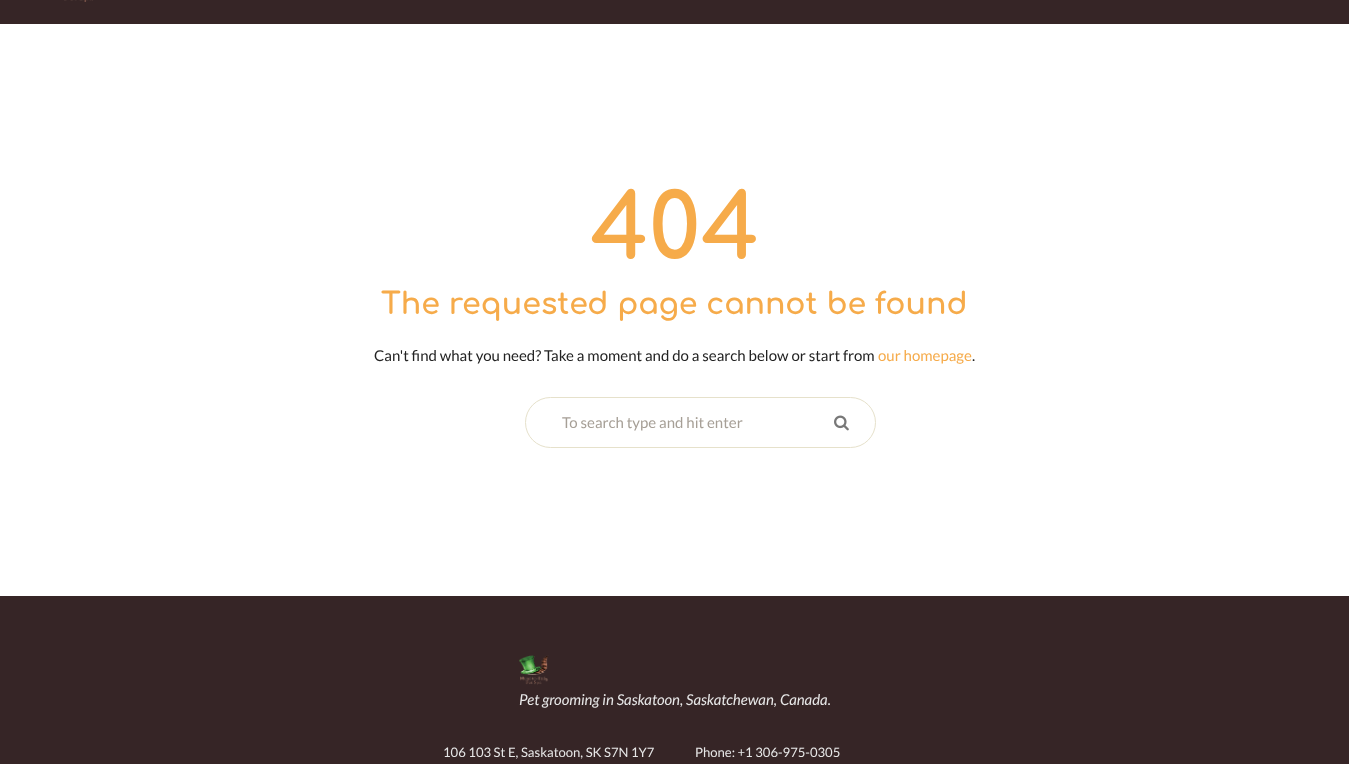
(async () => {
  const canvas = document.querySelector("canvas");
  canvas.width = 1349;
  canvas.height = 764;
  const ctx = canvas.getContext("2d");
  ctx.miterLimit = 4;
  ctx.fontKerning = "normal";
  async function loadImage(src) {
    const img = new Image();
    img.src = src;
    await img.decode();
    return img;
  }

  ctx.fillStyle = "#ffffff";
  ctx.fillRect(0, 0, 1349, 764);
  ctx.fillStyle = "#362526";
  ctx.fillRect(0, 0, 1349, 24);
  ctx.drawImage(await loadImage("img/1.png"), 64, 0, 29, 2);
  ctx.beginPath();
  ctx.roundRect(525.5, 397.5, 350, 50, 25);
  ctx.strokeStyle = "#e6e1cb";
  ctx.stroke();
  ctx.drawImage(await loadImage("img/2.png"), 834, 415, 15, 16);
  ctx.fillRect(0, 596, 1349, 168);
  ctx.drawImage(await loadImage("img/3.png"), 519, 655, 30, 30);
  ctx.font = "bold 90px Comfortaa";
  ctx.fillStyle = "#f6ab4a";
  ctx.fillText("404", 590, 259);
  ctx.font = "bold 30px Comfortaa";
  ctx.fillText("The requested page cannot be found", 381, 314);
  ctx.font = "15px Lato";
  ctx.fillStyle = "#222222";
  ctx.fillText("Can't find what you need? Take a moment and do a search below or start from", 374, 361);
  ctx.fillStyle = "#f6ab4a";
  ctx.fillText("our homepage", 878, 361);
  ctx.fillStyle = "#222222";
  ctx.fillText(".", 972, 361);
  ctx.fillStyle = "#a69f96";
  ctx.fillText("To search type and hit enter", 562, 428);
  ctx.font = "italic 15px Lato";
  ctx.fillStyle = "#e7e7e7";
  ctx.fillText("Pet grooming in Saskatoon, Saskatchewan, Canada.", 519, 705);
  ctx.font = "13.1px Lato";
  ctx.fillText("106 103 St E, Saskatoon, SK S7N 1Y7", 443, 757);
  ctx.fillText("Phone: +1 306-975-0305", 695, 757);
})();
